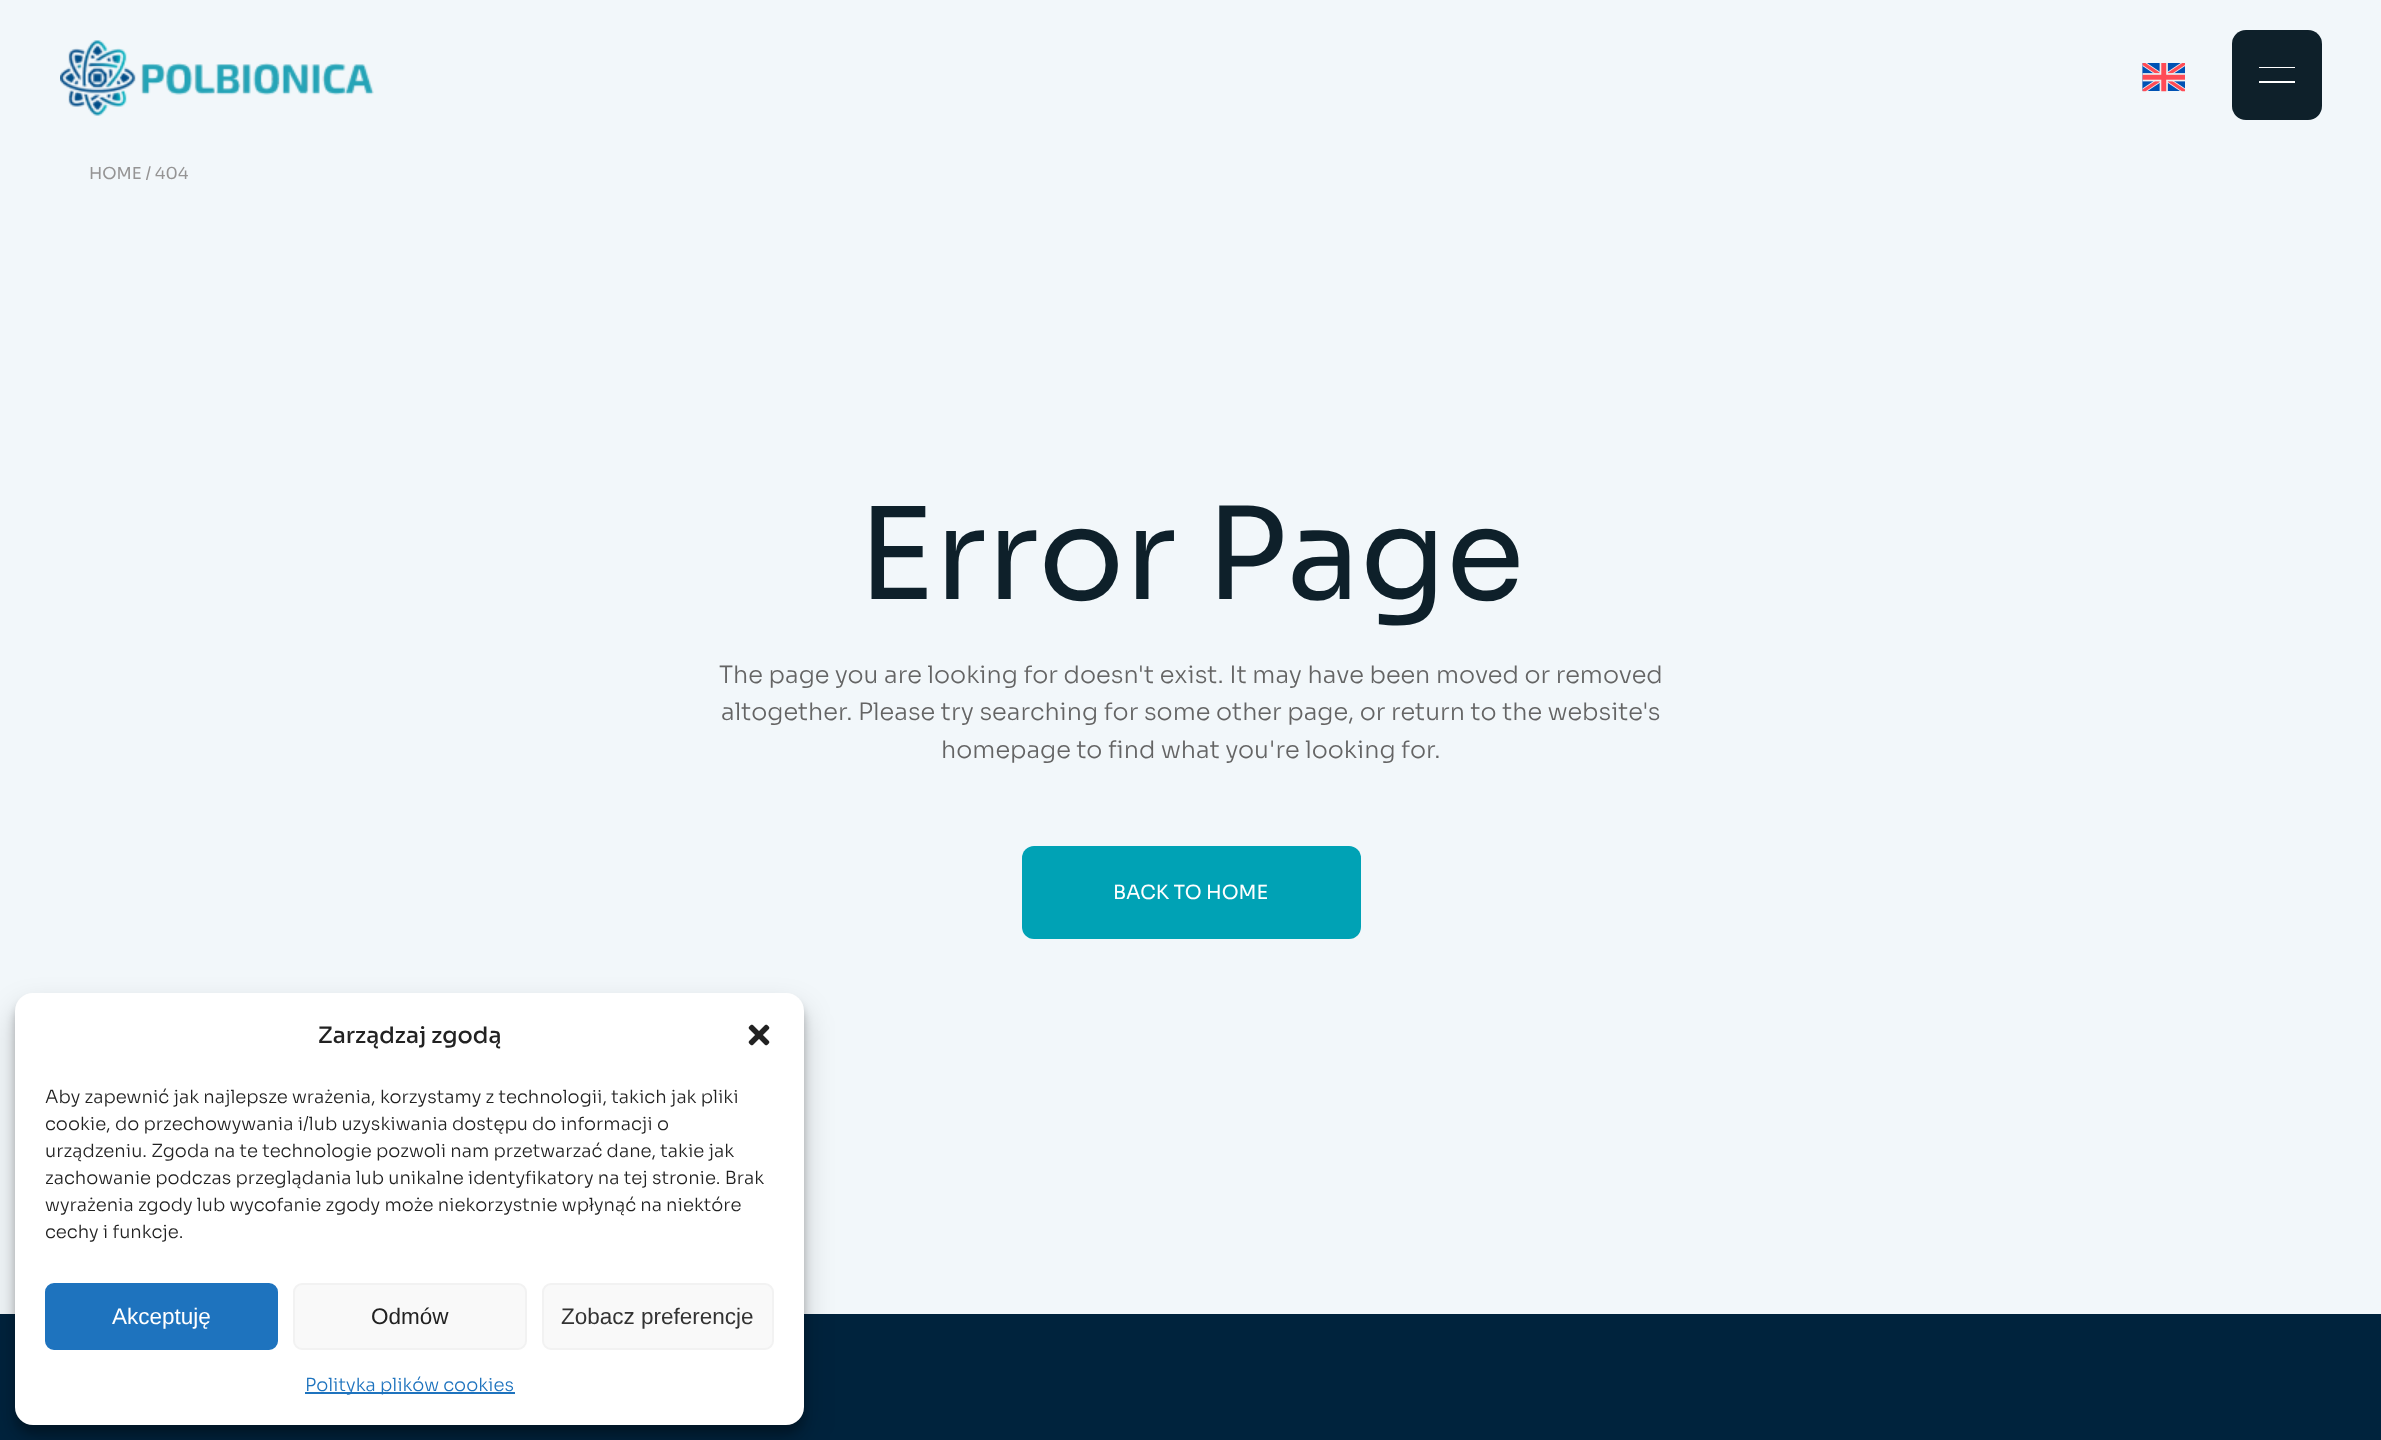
(async () => {
  const canvas = document.querySelector("canvas");
  canvas.width = 2381;
  canvas.height = 1440;
  const ctx = canvas.getContext("2d");
  ctx.miterLimit = 4;
  ctx.fontKerning = "normal";
  async function loadImage(src) {
    const img = new Image();
    img.src = src;
    await img.decode();
    return img;
  }

  ctx.fillStyle = "#f2f7fa";
  ctx.fillRect(0, 0, 2381, 1440);
  ctx.drawImage(await loadImage("img/1.png"), 60, 40, 314, 76);
  ctx.drawImage(await loadImage("img/2.png"), 2142, 63, 43, 29);
  ctx.fillStyle = "#0e202a";
  ctx.beginPath();
  ctx.roundRect(2232, 30, 90, 90, 14);
  ctx.fill();
  ctx.fillStyle = "#ffffff";
  ctx.fillRect(2259, 67, 36, 1);
  ctx.fillRect(2259, 81, 36, 2);
  ctx.fillStyle = "#00a2b5";
  ctx.beginPath();
  ctx.roundRect(1022, 846, 339, 93, 12);
  ctx.fill();
  ctx.fillStyle = "#00233d";
  ctx.fillRect(0, 1314, 2381, 126);
  ctx.fillStyle = "rgba(0, 0, 0, 0.23)";
  ctx.filter = "blur(4.5px)";
  ctx.beginPath();
  ctx.roundRect(15, 1002, 789, 432, 18);
  ctx.fill();
  ctx.filter = "none";
  ctx.fillStyle = "rgba(0, 0, 0, 0.19)";
  ctx.filter = "blur(15px)";
  ctx.beginPath();
  ctx.roundRect(15, 1008, 789, 432, 18);
  ctx.fill();
  ctx.filter = "none";
  ctx.fillStyle = "#ffffff";
  ctx.beginPath();
  ctx.roundRect(15, 993, 789, 432, 18);
  ctx.fill();
  ctx.drawImage(await loadImage("img/3.png"), 748, 1024, 22, 22);
  ctx.fillStyle = "#1e73be";
  ctx.beginPath();
  ctx.roundRect(46, 1284, 231, 65, 8);
  ctx.fill();
  ctx.strokeStyle = "#1e73be";
  ctx.lineWidth = 2;
  ctx.stroke();
  ctx.fillStyle = "#f9f9f9";
  ctx.beginPath();
  ctx.roundRect(294, 1284, 232, 65, 8);
  ctx.fill();
  ctx.strokeStyle = "#f2f2f2";
  ctx.stroke();
  ctx.beginPath();
  ctx.roundRect(543, 1284, 230, 65, 8);
  ctx.fill();
  ctx.stroke();
  ctx.fillStyle = "#1e73be";
  ctx.fillRect(305, 1392, 210, 2);
  ctx.font = "16.5px Sora";
  ctx.fillStyle = "#959494";
  ctx.fillText("HOME / 404", 89, 179);
  ctx.font = "127.5px Sora";
  ctx.fillStyle = "#0e202a";
  ctx.fillText("Error Page", 858, 599);
  ctx.font = "300 24px Sora";
  ctx.fillStyle = "#646464";
  for (const [text, x, y] of [
    ["The page you are looking for doesn't exist. It may have been moved or removed", 719, 683],
    ["altogether. Please try searching for some other page, or return to the website's", 721, 720],
    ["homepage to find what you're looking for.", 941, 758],
  ]) {
    ctx.fillText(text, x, y);
  }
  ctx.font = "19.5px Sora";
  ctx.fillStyle = "#ffffff";
  ctx.fillText("BACK TO HOME", 1113, 899);
  ctx.font = "500 22.5px Sora";
  ctx.fillStyle = "#222222";
  ctx.fillText("Zarządzaj zgodą", 318, 1043);
  ctx.font = "300 18px Sora";
  for (const [text, x, y] of [
    ["Aby zapewnić jak najlepsze wrażenia, korzystamy z technologii, takich jak pliki", 45, 1103],
    ["cookie, do przechowywania i/lub uzyskiwania dostępu do informacji o", 45, 1130],
    ["urządzeniu. Zgoda na te technologie pozwoli nam przetwarzać dane, takie jak", 45, 1157],
    ["zachowanie podczas przeglądania lub unikalne identyfikatory na tej stronie. Brak", 45, 1184],
    ["wyrażenia zgody lub wycofanie zgody może niekorzystnie wpłynąć na niektóre", 45, 1211],
    ["cechy i funkcje.", 45, 1238],
  ]) {
    ctx.fillText(text, x, y);
  }
  ctx.font = "22.5px Liberation Sans";
  ctx.fillStyle = "#ffffff";
  ctx.fillText("Akceptuję", 112, 1324);
  ctx.fillStyle = "#222222";
  ctx.fillText("Odmów", 371, 1324);
  ctx.fillStyle = "#333333";
  ctx.fillText("Zobacz preferencje", 561, 1324);
  ctx.font = "300 18px Sora";
  ctx.fillStyle = "#1e73be";
  ctx.fillText("Polityka plików cookies", 305, 1391);
})();
